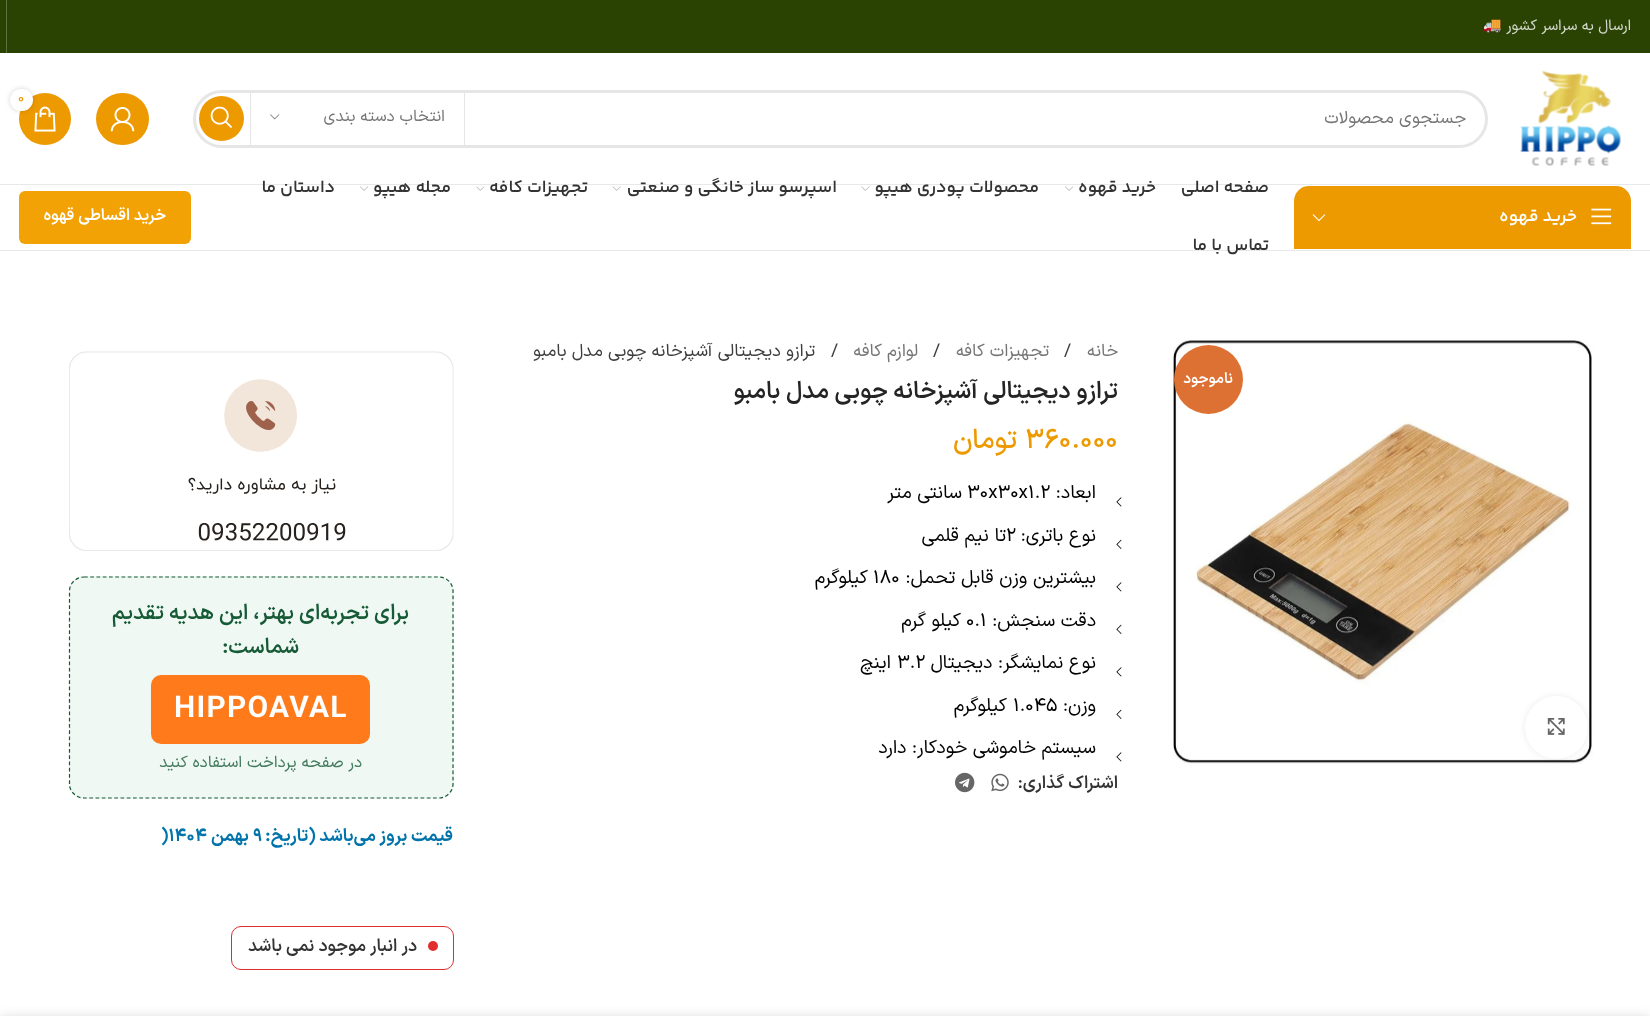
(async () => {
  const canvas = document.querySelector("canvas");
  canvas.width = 1650;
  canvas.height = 1016;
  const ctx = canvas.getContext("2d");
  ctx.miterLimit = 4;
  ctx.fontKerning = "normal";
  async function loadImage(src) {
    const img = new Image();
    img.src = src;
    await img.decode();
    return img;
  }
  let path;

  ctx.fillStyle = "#ffffff";
  ctx.fillRect(0, 0, 1650, 1016);
  for (const [x, y, w, h, color] of [
    [0, 0, 1650, 53, "#2a4303"],
    [6, 0, 1, 53, "#5f7242"],
    [0, 184, 1650, 1, "#e8e8e8"],
  ]) {
    ctx.fillStyle = color;
    ctx.fillRect(x, y, w, h);
  }
  ctx.drawImage(await loadImage("img/1.png"), 1520, 70, 101, 96);
  ctx.fillStyle = "#ed9a00";
  ctx.beginPath();
  ctx.roundRect(96, 93, 53, 52, 26);
  ctx.fill();
  ctx.drawImage(await loadImage("img/2.png"), 110, 107, 25, 25);
  ctx.beginPath();
  ctx.arc(45, 119, 26, 0, Math.PI * 2);
  ctx.fill();
  ctx.drawImage(await loadImage("img/3.png"), 34, 106, 22, 26);
  ctx.fillStyle = "rgba(0, 0, 0, 0.17)";
  ctx.filter = "blur(2.5px)";
  ctx.beginPath();
  ctx.roundRect(10, 89, 23, 22, 11);
  ctx.fill();
  ctx.filter = "none";
  ctx.fillStyle = "#ffffff";
  ctx.beginPath();
  ctx.roundRect(10, 89, 23, 22, 11);
  ctx.fill();
  ctx.beginPath();
  ctx.roundRect(194.5, 91.5, 1292, 55, 27.5);
  ctx.strokeStyle = "#e6e6e6";
  ctx.lineWidth = 3;
  ctx.stroke();
  ctx.fillStyle = "#e6e6e6";
  ctx.fillRect(464, 93, 1, 52);
  ctx.fillRect(250, 93, 1, 52);
  ctx.drawImage(await loadImage("img/4.png"), 270, 114, 10, 6);
  ctx.fillStyle = "#ed9a00";
  ctx.beginPath();
  ctx.arc(221.5, 118.5, 22.5, 0, Math.PI * 2);
  ctx.fill();
  ctx.drawImage(await loadImage("img/5.png"), 210, 106, 23, 22);
  ctx.fillStyle = "#e8e8e8";
  ctx.fillRect(0, 250, 1650, 1);
  ctx.fillStyle = "#ed9a00";
  ctx.beginPath();
  ctx.roundRect(1294, 186, 337, 63, [15, 15, 0, 0]);
  ctx.fill();
  ctx.drawImage(await loadImage("img/6.png"), 1591, 208, 21, 17);
  ctx.drawImage(await loadImage("img/7.png"), 1312, 214, 14, 8);
  ctx.drawImage(await loadImage("img/8.png"), 1065, 186, 8, 5);
  ctx.drawImage(await loadImage("img/9.png"), 861, 186, 9, 5);
  ctx.drawImage(await loadImage("img/10.png"), 612, 186, 9, 5);
  ctx.drawImage(await loadImage("img/9.png"), 476, 186, 9, 5);
  ctx.drawImage(await loadImage("img/8.png"), 360, 186, 8, 5);
  ctx.fillStyle = "#f3a205";
  ctx.beginPath();
  ctx.roundRect(19, 191, 172, 53, 6);
  ctx.fill();
  ctx.drawImage(await loadImage("img/11.png"), 1173, 340, 420, 424);
  ctx.fillStyle = "#dd7133";
  ctx.beginPath();
  ctx.arc(1208.5, 379.5, 34.5, 0, Math.PI * 2);
  ctx.fill();
  ctx.fillStyle = "rgba(0, 0, 0, 0.08)";
  ctx.filter = "blur(3px)";
  ctx.beginPath();
  ctx.roundRect(1525, 696, 63, 63, 31.5);
  ctx.fill();
  ctx.filter = "none";
  ctx.fillStyle = "#ffffff";
  ctx.beginPath();
  ctx.arc(1556.5, 727.5, 31.5, 0, Math.PI * 2);
  ctx.fill();
  ctx.drawImage(await loadImage("img/12.png"), 1547, 718, 18, 17);
  ctx.drawImage(await loadImage("img/13.png"), 1116, 497, 6, 10);
  ctx.drawImage(await loadImage("img/14.png"), 1116, 539, 6, 10);
  ctx.drawImage(await loadImage("img/13.png"), 1116, 582, 6, 10);
  ctx.drawImage(await loadImage("img/14.png"), 1116, 624, 6, 10);
  ctx.drawImage(await loadImage("img/13.png"), 1116, 667, 6, 10);
  ctx.drawImage(await loadImage("img/14.png"), 1116, 709, 6, 10);
  ctx.drawImage(await loadImage("img/13.png"), 1116, 752, 6, 10);
  ctx.drawImage(await loadImage("img/15.png"), 991, 773, 18, 19);
  ctx.drawImage(await loadImage("img/16.png"), 955, 772, 20, 21);
  ctx.drawImage(await loadImage("img/17.png"), 69, 351, 385, 200);
  ctx.fillStyle = "#f0f8f4";
  ctx.beginPath();
  ctx.roundRect(69, 576, 385, 223, 15);
  ctx.fill();
  path = new Path2D("M84 577H439C446.5 577 453 583.5 453 591V784C453 791.5 446.5 798 439 798H84C76 798 69.5 791.5 69.5 784V591C69.5 583.5 76 577 84 577Z");
  ctx.strokeStyle = "#165a36";
  ctx.lineWidth = 1.2;
  ctx.setLineDash([3.75, 2.5]);
  ctx.stroke(path);
  ctx.fillStyle = "#ff7a1a";
  ctx.beginPath();
  ctx.roundRect(151, 675, 219, 69, 10);
  ctx.fill();
  ctx.beginPath();
  ctx.roundRect(231.5, 926.5, 222, 43, 9.5);
  ctx.strokeStyle = "#e22d2d";
  ctx.lineWidth = 1;
  ctx.setLineDash([]);
  ctx.stroke();
  ctx.fillStyle = "#e22d2d";
  ctx.beginPath();
  ctx.arc(433, 946, 5, 0, Math.PI * 2);
  ctx.fill();
  ctx.fillStyle = "rgba(0, 0, 0, 0.12)";
  ctx.filter = "blur(5.5px)";
  ctx.beginPath();
  ctx.rect(0, 1016, 1650, 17);
  ctx.fill();
  ctx.filter = "none";
  ctx.direction = "rtl";
  ctx.font = "15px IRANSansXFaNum";
  ctx.fillStyle = "#d4d9cd";
  ctx.fillText("ارسال به سراسر کشور", 1631, 30);
  ctx.font = "15px Noto Color Emoji";
  ctx.fillText("🚚", 1502, 30);
  ctx.direction = "ltr";
  ctx.font = "14px IRANSansXFaNum";
  ctx.fillStyle = "#ed9a00";
  ctx.fillText("0", 18, 102);
  ctx.direction = "rtl";
  ctx.font = "17.5px IRANSansXFaNum";
  ctx.fillStyle = "#767676";
  ctx.fillText("جستجوی محصولات", 1466, 123);
  ctx.font = "16.25px IRANSansXFaNum";
  ctx.fillText("انتخاب دسته بندی", 445, 121);
  ctx.font = "600 17.5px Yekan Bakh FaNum";
  ctx.fillStyle = "#ffffff";
  ctx.fillText("خرید قهوه", 1577, 221);
  ctx.fillStyle = "#333333";
  for (const [text, x, y] of [
    ["صفحه اصلی", 1269, 192],
    ["خرید قهوه", 1156, 192],
    ["محصولات پودری هیپو", 1039, 192],
    ["اسپرسو ساز خانگی و صنعتی", 837, 192],
    ["تجهیزات کافه", 588, 192],
    ["مجله هیپو", 451, 192],
    ["داستان ما", 335, 192],
    ["تماس با ما", 1269, 250],
  ]) {
    ctx.fillText(text, x, y);
  }
  ctx.font = "600 16.25px IRANSansXFaNum";
  ctx.fillStyle = "#ffffff";
  ctx.fillText("خرید اقساطی قهوه", 166, 220);
  ctx.font = "600 15px IRANSansXFaNum";
  ctx.fillText("ناموجود", 1233, 383);
  ctx.font = "17.5px IRANSansXFaNum";
  ctx.fillStyle = "#767676";
  ctx.fillText("خانه", 1118, 356);
  ctx.direction = "ltr";
  ctx.fillStyle = "#3d3d3d";
  ctx.fillText("/", 1064, 356);
  ctx.direction = "rtl";
  ctx.fillStyle = "#767676";
  ctx.fillText("تجهیزات کافه", 1049, 356);
  ctx.direction = "ltr";
  ctx.fillStyle = "#3d3d3d";
  ctx.fillText("/", 933, 356);
  ctx.direction = "rtl";
  ctx.fillStyle = "#767676";
  ctx.fillText("لوازم کافه", 918, 356);
  ctx.direction = "ltr";
  ctx.fillStyle = "#3d3d3d";
  ctx.fillText("/", 831, 356);
  ctx.direction = "rtl";
  ctx.fillText("ترازو دیجیتالی آشپزخانه چوبی مدل بامبو", 815, 356);
  ctx.font = "600 23.75px IRANSansXFaNum";
  ctx.fillStyle = "#242424";
  ctx.fillText("ترازو دیجیتالی آشپزخانه چوبی مدل بامبو", 1118, 398);
  ctx.direction = "ltr";
  ctx.font = "500 27.5px IRANSansXFaNum";
  ctx.fillStyle = "#ed9a00";
  ctx.fillText("360.000", 1025, 448);
  ctx.direction = "rtl";
  ctx.fillText("تومان", 1017, 448);
  ctx.font = "18.75px IRANSansXFaNum";
  ctx.fillStyle = "#000000";
  ctx.fillText("ابعاد:", 1096, 498);
  ctx.direction = "ltr";
  ctx.fillText("30x30x1.2", 967, 498);
  ctx.direction = "rtl";
  ctx.fillText("سانتی متر", 962, 498);
  ctx.fillText("نوع باتری:", 1096, 541);
  ctx.direction = "ltr";
  ctx.fillText("2", 1006, 541);
  ctx.direction = "rtl";
  ctx.fillText("تا نیم قلمی", 1006, 541);
  ctx.fillText("بیشترین وزن قابل تحمل:", 1096, 583);
  ctx.direction = "ltr";
  ctx.fillText("180", 873, 583);
  ctx.direction = "rtl";
  ctx.fillText("کیلوگرم", 868, 583);
  ctx.fillText("دقت سنجش:", 1096, 626);
  ctx.direction = "ltr";
  ctx.fillText("0.1", 966, 626);
  ctx.direction = "rtl";
  ctx.fillText("کیلو گرم", 961, 626);
  ctx.fillText("نوع نمایشگر: دیجیتال", 1096, 668);
  ctx.direction = "ltr";
  ctx.fillText("3.2", 897, 668);
  ctx.direction = "rtl";
  ctx.fillText("اینچ", 891, 668);
  ctx.fillText("وزن:", 1096, 711);
  ctx.direction = "ltr";
  ctx.fillText("1.045", 1013, 711);
  ctx.direction = "rtl";
  ctx.fillText("کیلوگرم", 1007, 711);
  ctx.fillText("سیستم خاموشی خودکار: دارد", 1096, 753);
  ctx.font = "600 17.5px IRANSansXFaNum";
  ctx.fillStyle = "#333333";
  ctx.fillText("اشتراک گذاری:", 1118, 788);
  ctx.font = "600 21.25px IRANSansXFaNum";
  ctx.fillStyle = "#165a36";
  ctx.fillText("برای تجربه‌ای بهتر، این هدیه تقدیم", 409, 619);
  ctx.fillText("شماست:", 299, 653);
  ctx.letterSpacing = "1.25px";
  ctx.direction = "ltr";
  ctx.font = "bold 30px IRANSansXFaNum";
  ctx.fillStyle = "#ffffff";
  ctx.fillText("HIPPOAVAL", 174, 717);
  ctx.letterSpacing = "0px";
  ctx.direction = "rtl";
  ctx.font = "16.25px IRANSansXFaNum";
  ctx.fillStyle = "#427a5c";
  ctx.fillText("در صفحه پرداخت استفاده کنید", 362, 767);
  ctx.font = "bold 17.5px IRANSansXFaNum";
  ctx.fillStyle = "#0073aa";
  ctx.fillText("قیمت‌ بروز می‌باشد (تاریخ:", 453, 841);
  ctx.direction = "ltr";
  ctx.fillText("9", 253, 841);
  ctx.direction = "rtl";
  ctx.fillText("بهمن", 249, 841);
  ctx.direction = "ltr";
  ctx.fillText(")1404", 161, 841);
  ctx.direction = "rtl";
  ctx.font = "600 17.5px IRANSansXFaNum";
  ctx.fillStyle = "#333333";
  ctx.fillText("در انبار موجود نمی باشد", 417, 951);
})();
